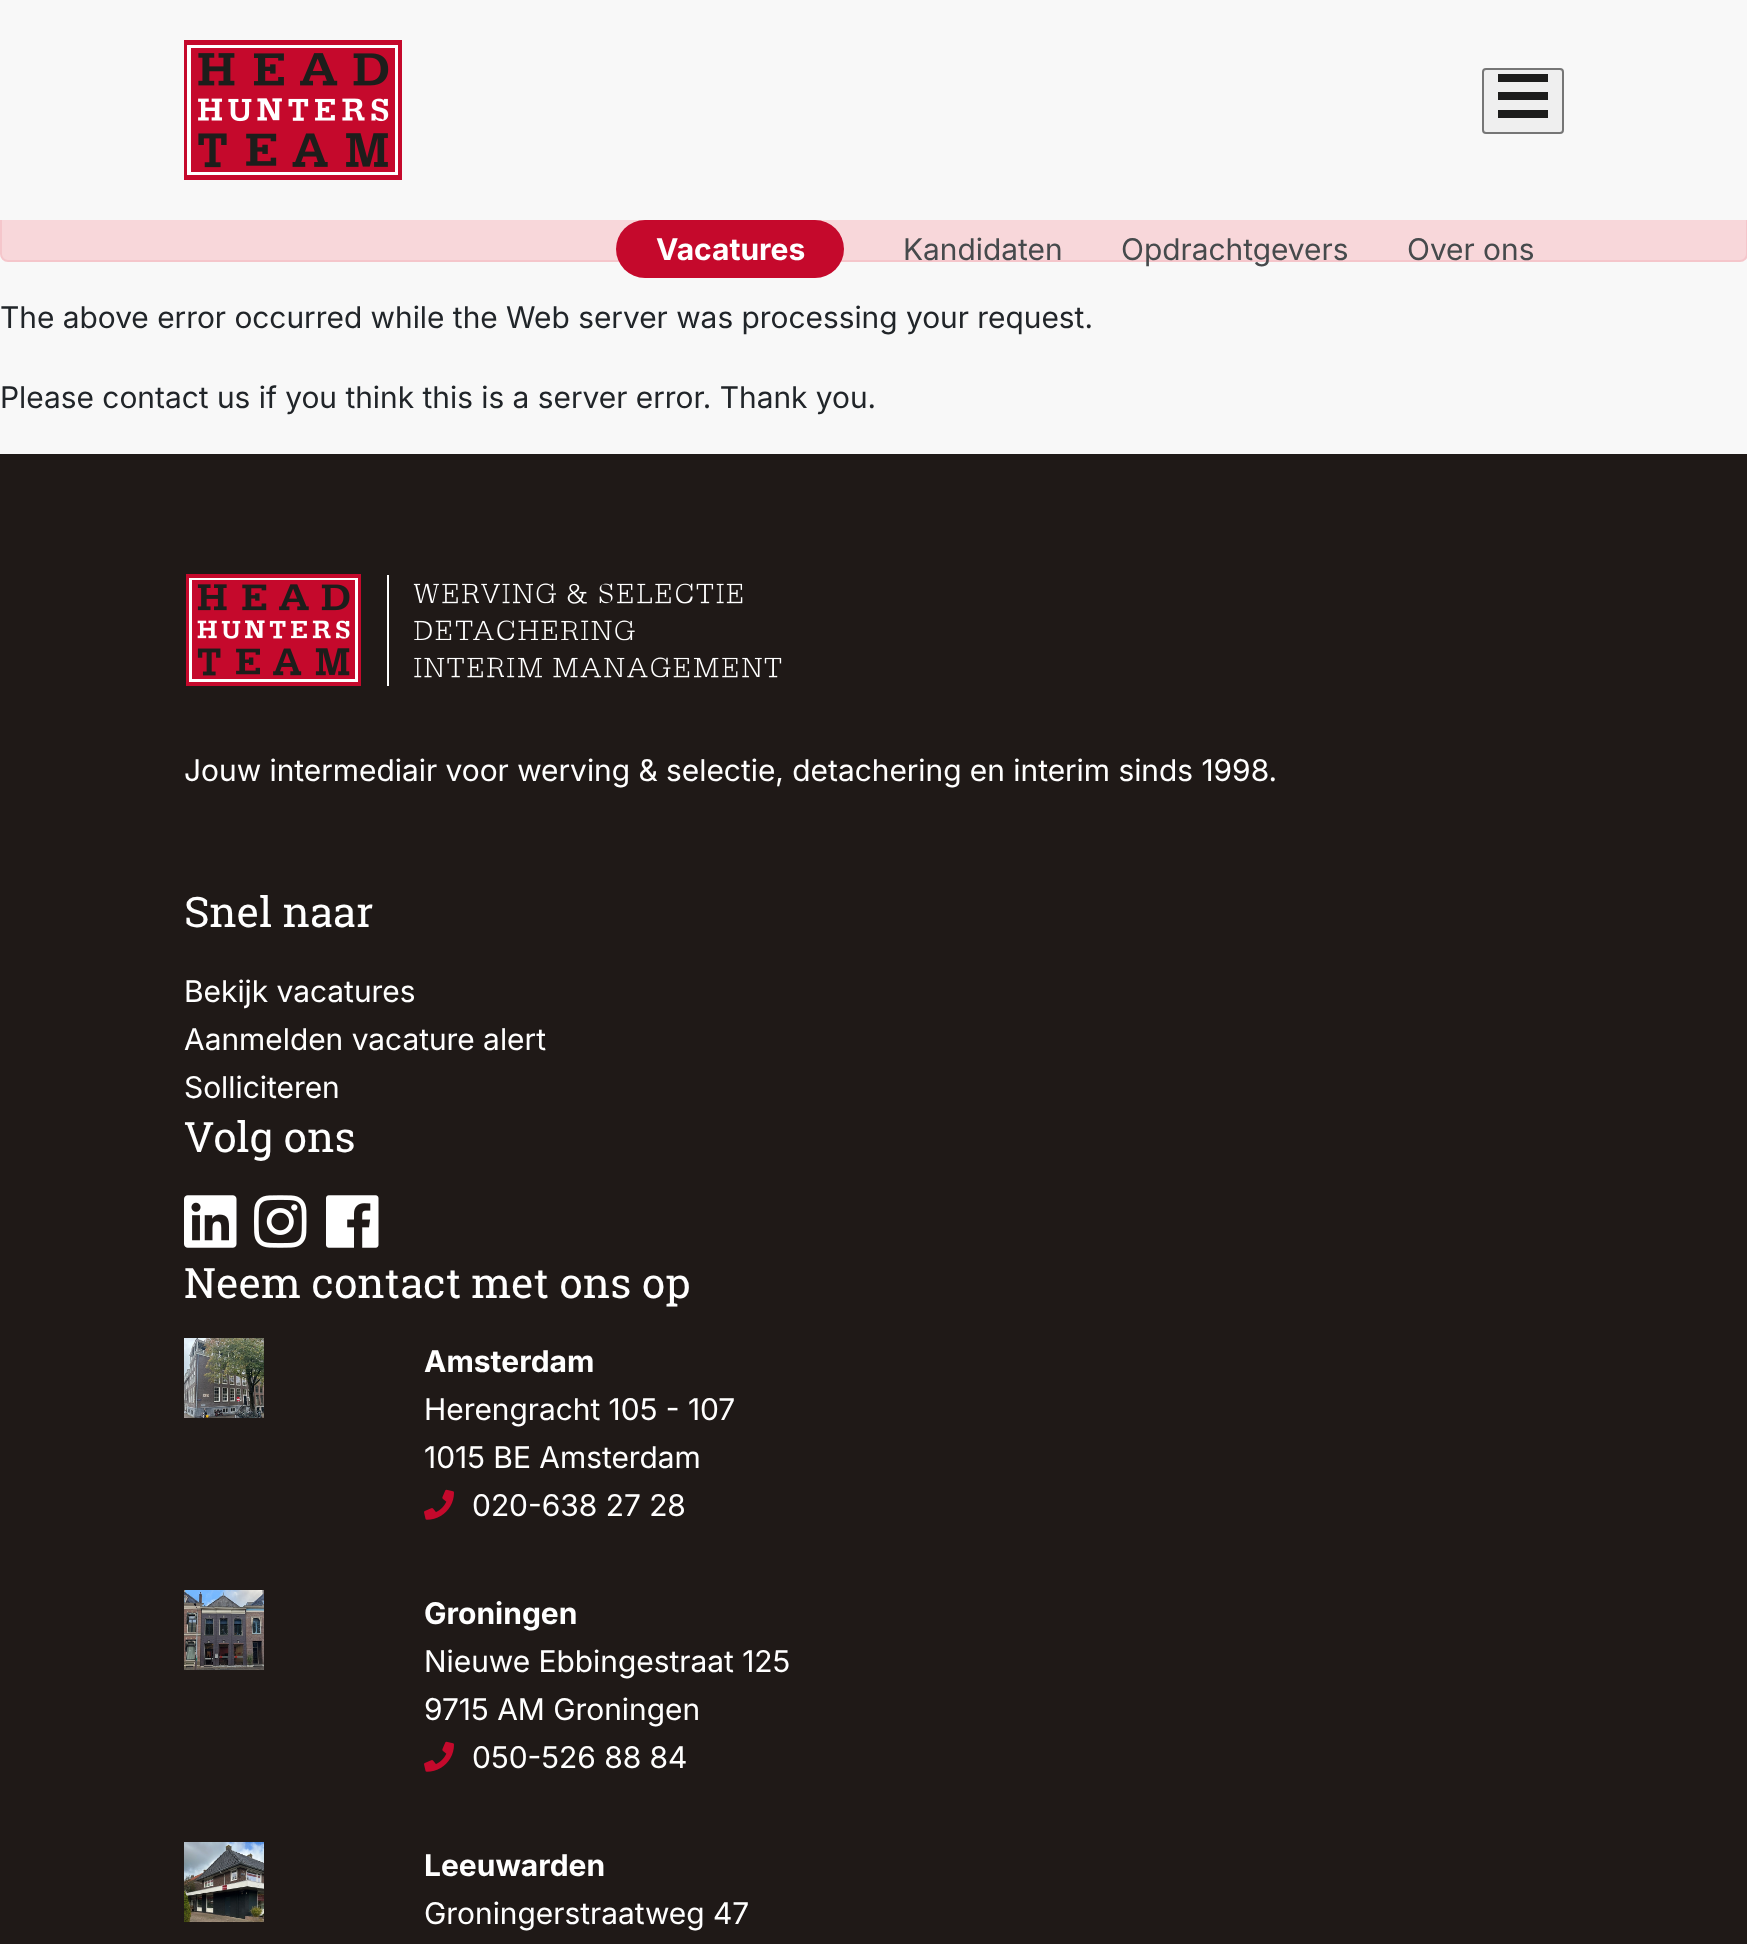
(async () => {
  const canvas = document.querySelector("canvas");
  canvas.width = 1747;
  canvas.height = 1944;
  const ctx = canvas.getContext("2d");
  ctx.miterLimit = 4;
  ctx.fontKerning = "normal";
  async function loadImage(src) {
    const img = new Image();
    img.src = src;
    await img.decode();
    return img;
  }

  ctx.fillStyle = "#f8f8f8";
  ctx.fillRect(0, 0, 1747, 1944);
  ctx.fillStyle = "#f8d7da";
  ctx.beginPath();
  ctx.roundRect(1, 163, 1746, 98, 7);
  ctx.fill();
  ctx.strokeStyle = "#f5c6cb";
  ctx.lineWidth = 2;
  ctx.stroke();
  ctx.fillStyle = "#f8f8f8";
  ctx.fillRect(0, 162, 1747, 58);
  ctx.drawImage(await loadImage("img/1.png"), 184, 40, 218, 140);
  ctx.fillStyle = "#efefef";
  ctx.beginPath();
  ctx.roundRect(1483, 69, 80, 64, 3);
  ctx.fill();
  ctx.strokeStyle = "#767676";
  ctx.stroke();
  for (const [x, y, w, h, color] of [
    [1498, 74, 50, 8, "#1d1d1c"],
    [1498, 92, 50, 8, "#1d1d1c"],
    [1498, 110, 50, 8, "#1d1d1c"],
  ]) {
    ctx.fillStyle = color;
    ctx.fillRect(x, y, w, h);
  }
  ctx.fillStyle = "#c5092c";
  ctx.beginPath();
  ctx.roundRect(616, 220, 228, 58, 29);
  ctx.fill();
  ctx.fillStyle = "#1f1917";
  ctx.fillRect(0, 454, 1747, 1490);
  ctx.drawImage(await loadImage("img/2.png"), 186, 574, 596, 112);
  ctx.drawImage(await loadImage("img/3.png"), 184, 1195, 53, 53);
  ctx.drawImage(await loadImage("img/4.png"), 254, 1195, 53, 53);
  ctx.drawImage(await loadImage("img/5.png"), 326, 1195, 53, 53);
  ctx.drawImage(await loadImage("img/6.png"), 184, 1338, 80, 80);
  ctx.drawImage(await loadImage("img/7.png"), 424, 1489, 30, 31);
  ctx.drawImage(await loadImage("img/8.png"), 184, 1590, 80, 80);
  ctx.drawImage(await loadImage("img/7.png"), 424, 1741, 30, 31);
  ctx.drawImage(await loadImage("img/9.png"), 184, 1842, 80, 80);
  ctx.font = "bold 30px Inter";
  ctx.fillStyle = "#ffffff";
  ctx.fillText("Vacatures", 656, 260);
  ctx.font = "30px Inter";
  ctx.fillStyle = "#464a4c";
  for (const [text, x, y] of [
    ["Kandidaten", 903, 260],
    ["Opdrachtgevers", 1121, 260],
    ["Over ons", 1407, 260],
  ]) {
    ctx.fillText(text, x, y);
  }
  ctx.fillStyle = "#212529";
  ctx.fillText("The above error occurred while the Web server was processing your request.", 0, 328);
  ctx.fillText("Please contact us if you think this is a server error. Thank you.", 0, 408);
  ctx.fillStyle = "#ffffff";
  ctx.fillText("Jouw intermediair voor werving & selectie, detachering en interim sinds 1998.", 184, 781);
  ctx.font = "42px Roboto Slab";
  ctx.fillText("Snel naar", 184, 927);
  ctx.font = "30px Inter";
  for (const [text, x, y] of [
    ["Bekijk vacatures", 184, 1002],
    ["Aanmelden vacature alert", 184, 1050],
    ["Solliciteren", 184, 1098],
  ]) {
    ctx.fillText(text, x, y);
  }
  ctx.font = "42px Roboto Slab";
  ctx.fillText("Volg ons", 184, 1152);
  ctx.fillText("Neem contact met ons op", 184, 1298);
  ctx.font = "bold 30px Inter";
  ctx.fillText("Amsterdam", 424, 1372);
  ctx.font = "30px Inter";
  for (const [text, x, y] of [
    ["Herengracht 105 - 107", 424, 1420],
    ["1015 BE Amsterdam", 424, 1468],
    ["020-638 27 28", 472, 1516],
  ]) {
    ctx.fillText(text, x, y);
  }
  ctx.font = "bold 30px Inter";
  ctx.fillText("Groningen", 424, 1624);
  ctx.font = "30px Inter";
  for (const [text, x, y] of [
    ["Nieuwe Ebbingestraat 125", 424, 1672],
    ["9715 AM Groningen", 424, 1720],
    ["050-526 88 84", 472, 1768],
  ]) {
    ctx.fillText(text, x, y);
  }
  ctx.font = "bold 30px Inter";
  ctx.fillText("Leeuwarden", 424, 1876);
  ctx.font = "30px Inter";
  ctx.fillText("Groningerstraatweg 47", 424, 1924);
})();
